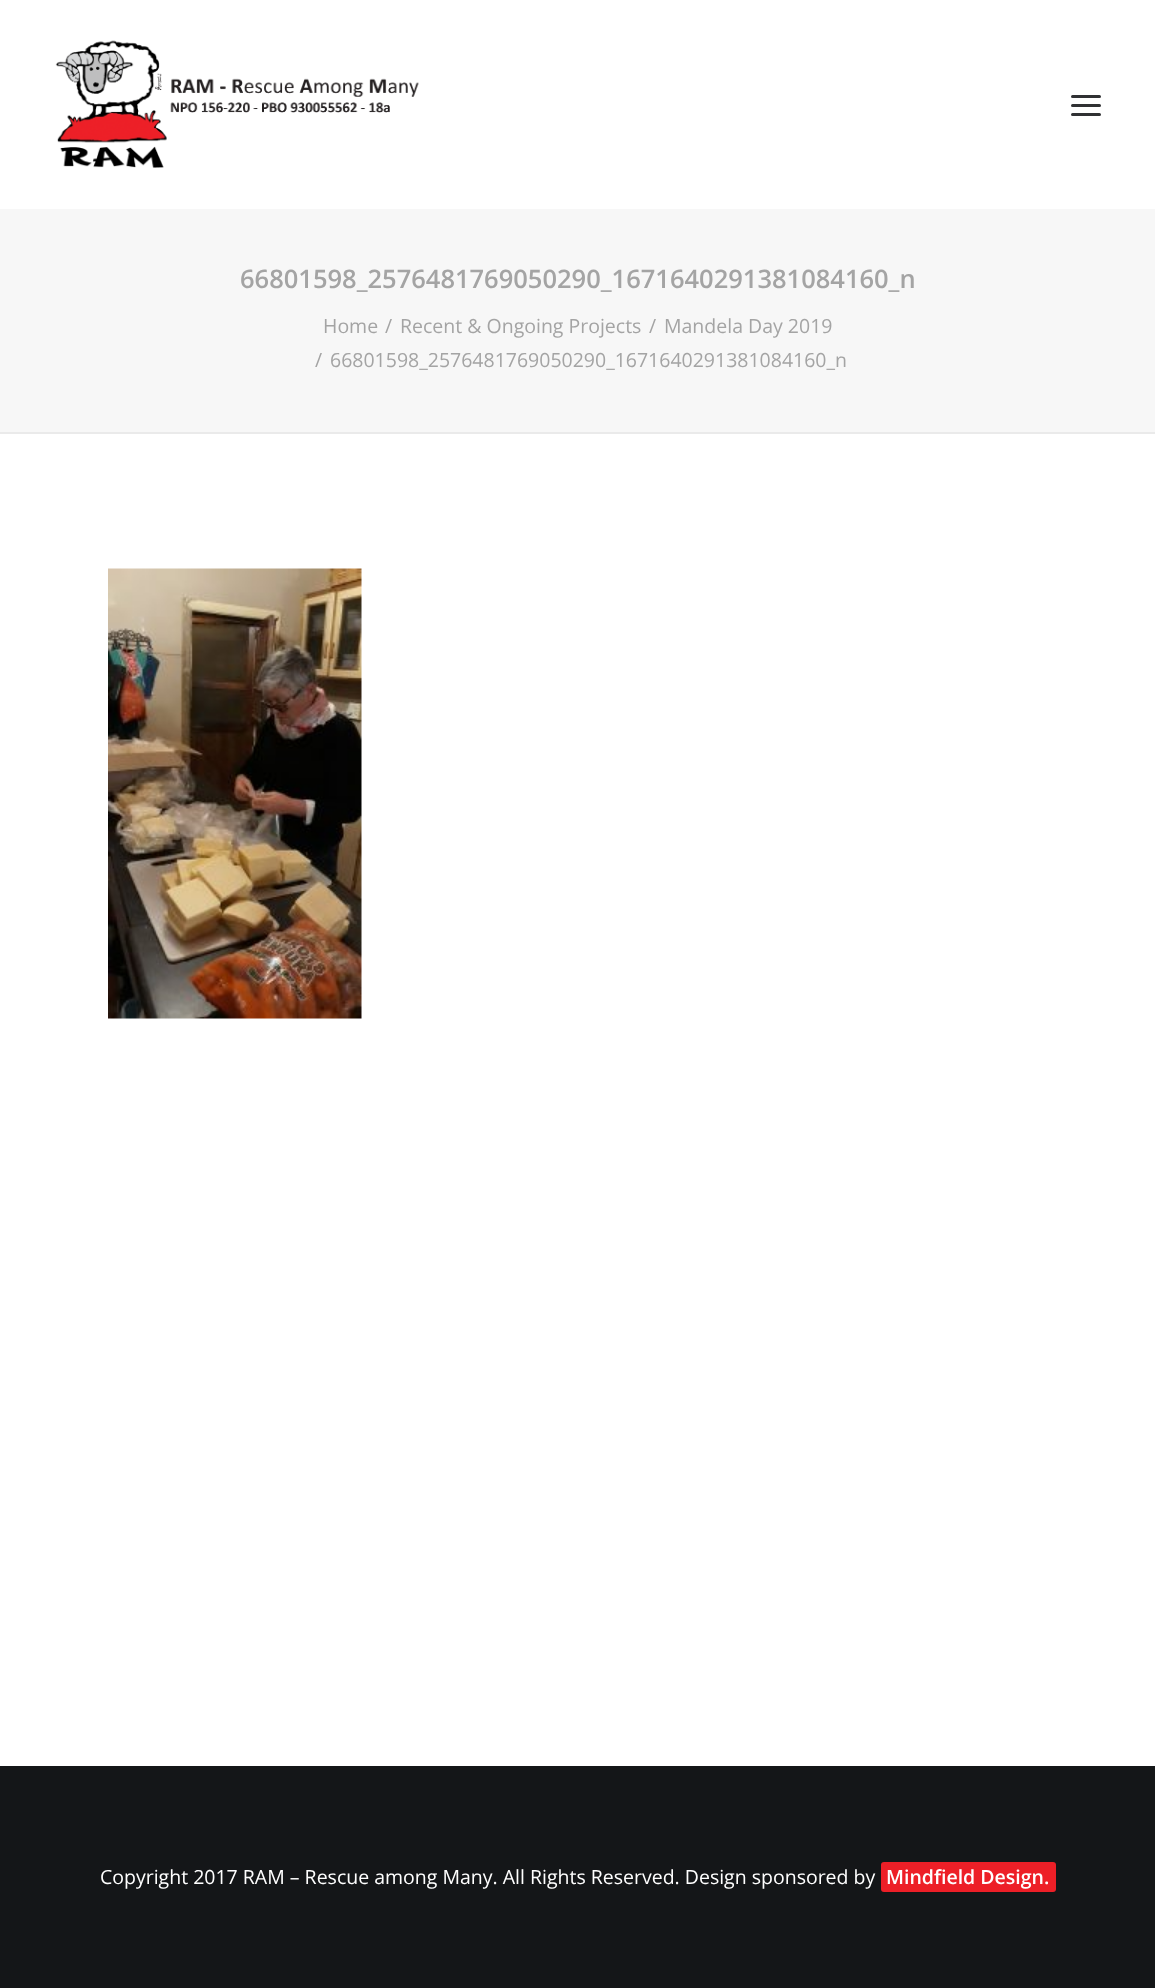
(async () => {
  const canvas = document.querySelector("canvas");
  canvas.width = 1155;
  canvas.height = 1988;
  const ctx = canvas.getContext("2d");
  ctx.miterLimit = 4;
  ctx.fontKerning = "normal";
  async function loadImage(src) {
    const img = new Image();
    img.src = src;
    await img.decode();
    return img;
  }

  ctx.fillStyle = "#f7f7f7";
  ctx.fillRect(0, 0, 1155, 1988);
  ctx.fillStyle = "#ffffff";
  ctx.fillRect(0, 0, 1155, 209);
  ctx.drawImage(await loadImage("img/1.png"), 55, 40, 364, 128);
  ctx.fillStyle = "#303133";
  ctx.beginPath();
  ctx.roundRect(1071, 104, 30, 3, 1.5);
  ctx.fill();
  ctx.beginPath();
  ctx.roundRect(1071, 95, 30, 3, 1.5);
  ctx.fill();
  ctx.beginPath();
  ctx.roundRect(1071, 113, 30, 3, 1.5);
  ctx.fill();
  ctx.fillStyle = "#eaeaea";
  ctx.fillRect(0, 432, 1155, 2);
  ctx.fillStyle = "#ffffff";
  ctx.fillRect(0, 434, 1155, 1332);
  ctx.drawImage(await loadImage("img/2.png"), 108, 568, 254, 451);
  ctx.fillStyle = "#141618";
  ctx.fillRect(0, 1766, 1155, 222);
  ctx.fillStyle = "#ed1f27";
  ctx.beginPath();
  ctx.roundRect(881, 1862, 163, 30, [3, 0, 0, 3]);
  ctx.fill();
  ctx.beginPath();
  ctx.roundRect(1044, 1862, 12, 30, [0, 3, 3, 0]);
  ctx.fill();
  ctx.font = "600 25.5px Open Sans";
  ctx.fillStyle = "#a4a4a4";
  ctx.fillText("66801598_2576481769050290_1671640291381084160_n", 240, 288);
  ctx.font = "19.5px Open Sans";
  for (const [text, x, y] of [
    ["Home", 323, 333],
    ["/", 385, 333],
    ["Recent & Ongoing Projects", 400, 333],
    ["/", 649, 333],
    ["Mandela Day 2019", 664, 333],
    ["/", 315, 367],
    ["66801598_2576481769050290_1671640291381084160_n", 330, 367],
  ]) {
    ctx.fillText(text, x, y);
  }
  ctx.fillStyle = "#ffffff";
  ctx.fillText("Copyright 2017 RAM – Rescue among Many. All Rights Reserved. Design sponsored by", 100, 1884);
  ctx.font = "600 19.5px Open Sans";
  ctx.fillText("Mindfield Design.", 886, 1884);
})();
